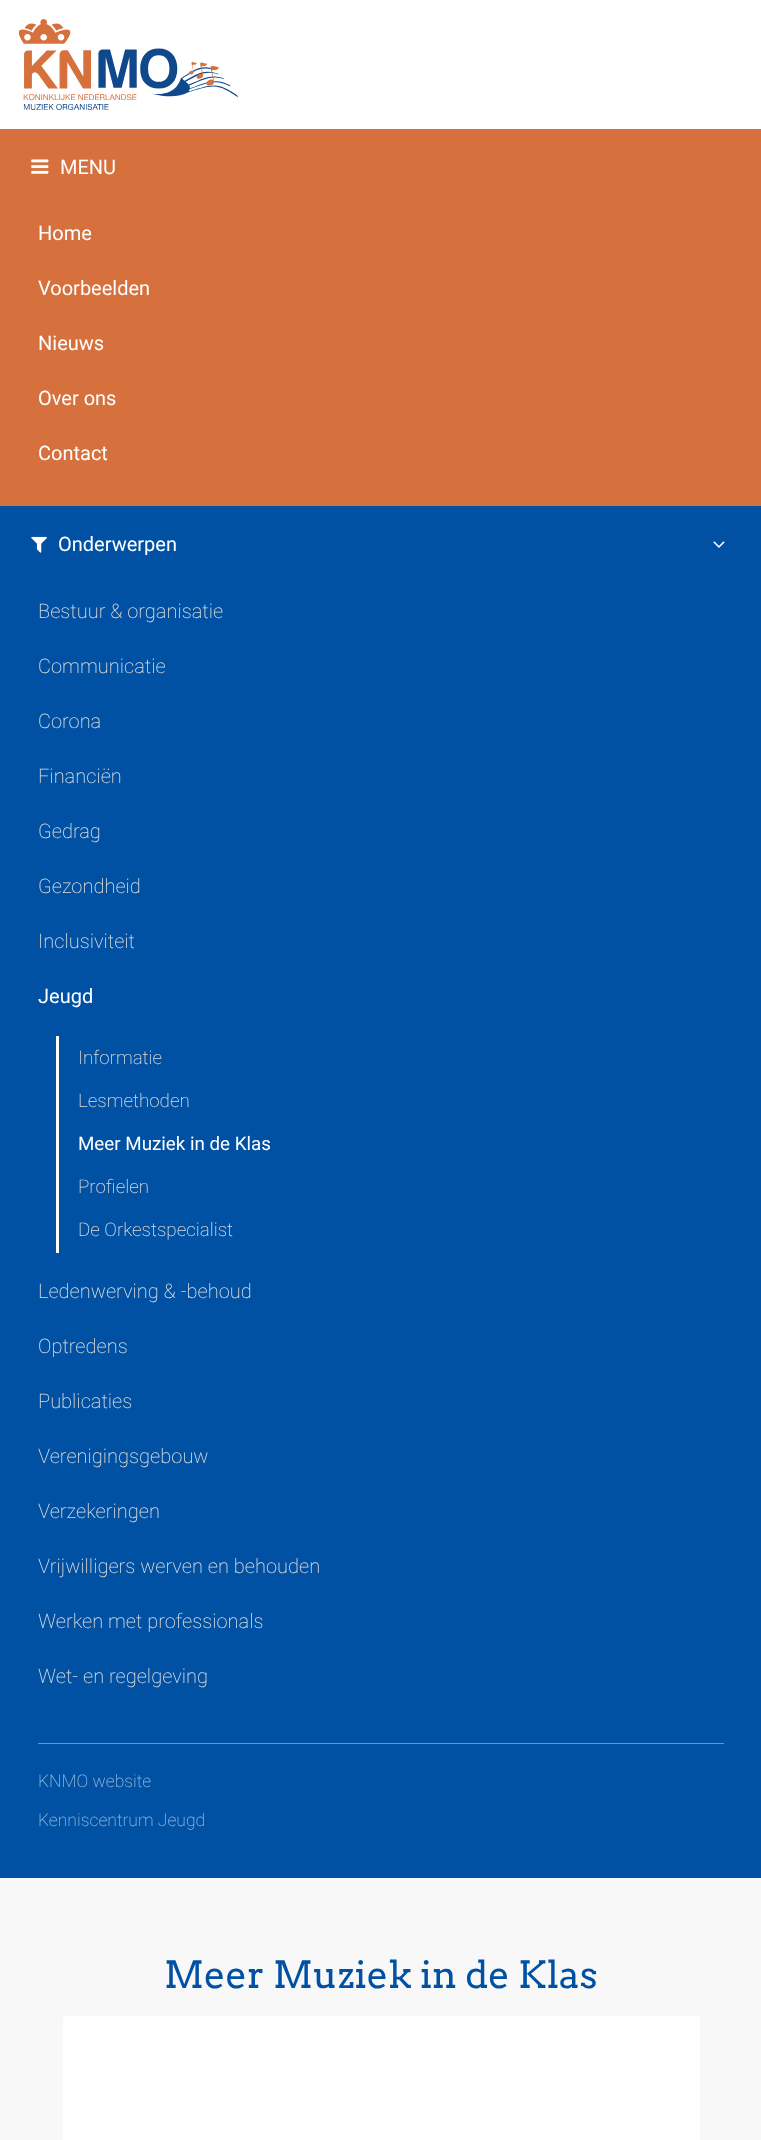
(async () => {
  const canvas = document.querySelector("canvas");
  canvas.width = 761;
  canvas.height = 2140;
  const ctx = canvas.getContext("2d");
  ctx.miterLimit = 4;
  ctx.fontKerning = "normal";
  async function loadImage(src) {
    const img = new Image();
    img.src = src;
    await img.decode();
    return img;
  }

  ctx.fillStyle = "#f8f8f8";
  ctx.fillRect(0, 0, 761, 2140);
  ctx.fillStyle = "#d6703d";
  ctx.fillRect(0, 129, 761, 377);
  ctx.fillStyle = "#ffffff";
  ctx.fillRect(0, 0, 761, 129);
  ctx.drawImage(await loadImage("img/1.png"), 18, 19, 221, 91);
  ctx.drawImage(await loadImage("img/2.png"), 31, 159, 18, 15);
  ctx.fillStyle = "#0051a3";
  ctx.fillRect(0, 506, 761, 1372);
  ctx.drawImage(await loadImage("img/3.png"), 31, 536, 16, 17);
  ctx.drawImage(await loadImage("img/4.png"), 713, 541, 12, 7);
  ctx.fillStyle = "#ffffff";
  ctx.fillRect(56, 1036, 3, 217);
  ctx.fillStyle = "#6697c8";
  ctx.fillRect(38, 1743, 686, 1);
  ctx.fillStyle = "#ffffff";
  ctx.beginPath();
  ctx.roundRect(63, 2016, 637, 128, 4);
  ctx.fill();
  ctx.font = "20px Roboto";
  for (const [text, x, y] of [
    ["MENU", 60, 174],
    ["Home", 38, 240],
    ["Voorbeelden", 38, 295],
    ["Nieuws", 38, 350],
    ["Over ons", 38, 405],
    ["Contact", 38, 460],
    ["Onderwerpen", 58, 551],
  ]) {
    ctx.fillText(text, x, y);
  }
  ctx.font = "200 20px Roboto";
  ctx.fillStyle = "#dddddd";
  for (const [text, x, y] of [
    ["Bestuur & organisatie", 38, 618],
    ["Communicatie", 38, 673],
    ["Corona", 38, 728],
    ["Financiën", 38, 783],
    ["Gedrag", 38, 838],
    ["Gezondheid", 38, 893],
    ["Inclusiviteit", 38, 948],
  ]) {
    ctx.fillText(text, x, y);
  }
  ctx.font = "20px Roboto";
  ctx.fillStyle = "#ffffff";
  ctx.fillText("Jeugd", 38, 1003);
  ctx.font = "200 18.75px Roboto";
  ctx.fillStyle = "#dddddd";
  ctx.fillText("Informatie", 78, 1064);
  ctx.fillText("Lesmethoden", 78, 1107);
  ctx.font = "18.75px Roboto";
  ctx.fillStyle = "#ffffff";
  ctx.fillText("Meer Muziek in de Klas", 78, 1150);
  ctx.font = "200 18.75px Roboto";
  ctx.fillStyle = "#dddddd";
  ctx.fillText("Profielen", 78, 1193);
  ctx.fillText("De Orkestspecialist", 78, 1236);
  ctx.font = "200 20px Roboto";
  for (const [text, x, y] of [
    ["Ledenwerving & -behoud", 38, 1298],
    ["Optredens", 38, 1353],
    ["Publicaties", 38, 1408],
    ["Verenigingsgebouw", 38, 1463],
    ["Verzekeringen", 38, 1518],
    ["Vrijwilligers werven en behouden", 38, 1573],
    ["Werken met professionals", 38, 1628],
    ["Wet- en regelgeving", 38, 1683],
  ]) {
    ctx.fillText(text, x, y);
  }
  ctx.font = "200 17.5px Roboto";
  ctx.fillStyle = "#99b9da";
  ctx.fillText("KNMO website", 38, 1787);
  ctx.fillText("Kenniscentrum Jeugd", 38, 1826);
  ctx.font = "37.5px Arvo";
  ctx.fillStyle = "#0051a3";
  ctx.fillText("Meer Muziek in de Klas", 164, 1988);
})();
